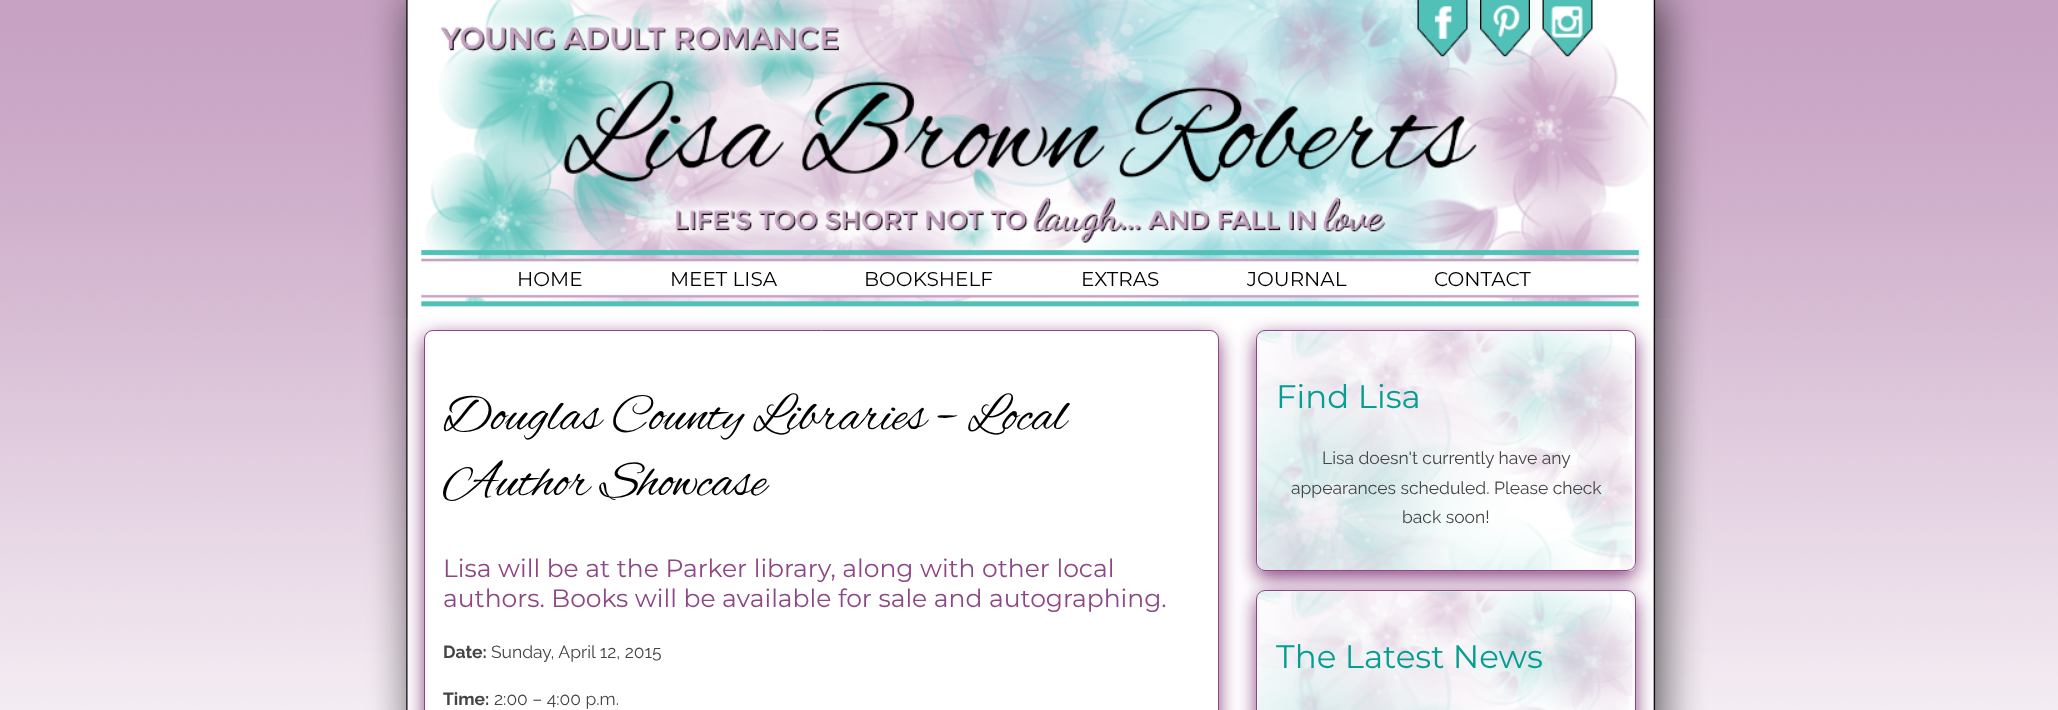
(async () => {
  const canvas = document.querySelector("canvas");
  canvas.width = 2058;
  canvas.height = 710;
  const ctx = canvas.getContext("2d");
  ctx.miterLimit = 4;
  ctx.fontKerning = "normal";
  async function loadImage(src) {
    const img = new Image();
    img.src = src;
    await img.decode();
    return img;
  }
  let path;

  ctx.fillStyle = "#ffffff";
  ctx.fillRect(0, 0, 2058, 710);
  ctx.drawImage(await loadImage("img/1.png"), 0, 0, 2058, 710);
  ctx.drawImage(await loadImage("img/2.png"), 1417, 0, 51, 57);
  ctx.drawImage(await loadImage("img/3.png"), 1480, 0, 50, 57);
  ctx.drawImage(await loadImage("img/4.png"), 1542, 0, 51, 57);
  ctx.fillStyle = "#8d4785";
  ctx.filter = "blur(9.5px)";
  ctx.beginPath();
  ctx.roundRect(424, 336, 795, 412, 9);
  ctx.fill();
  ctx.filter = "none";
  ctx.fillStyle = "#ffffff";
  ctx.beginPath();
  ctx.roundRect(424.5, 330.5, 794, 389, 8.5);
  ctx.fill();
  ctx.strokeStyle = "#8d4785";
  ctx.stroke();
  ctx.save();
  path = new Path2D("M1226 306H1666V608H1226ZM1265 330H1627C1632 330 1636 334 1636 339V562C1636 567 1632 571 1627 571H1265C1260 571 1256 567 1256 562V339C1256 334 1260 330 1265 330Z");
  ctx.clip(path, "evenodd");
  ctx.fillStyle = "#8d4785";
  ctx.filter = "blur(9.5px)";
  ctx.beginPath();
  ctx.roundRect(1256, 336, 380, 242, 9);
  ctx.fill();
  ctx.filter = "none";
  ctx.restore();
  ctx.drawImage(await loadImage("img/5.png"), 1257, 331, 377, 241);
  ctx.beginPath();
  ctx.roundRect(1256.5, 330.5, 379, 240, 8.5);
  ctx.stroke();
  ctx.save();
  path = new Path2D("M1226 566H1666V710H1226ZM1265 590H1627C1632 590 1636 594 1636 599V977C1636 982 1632 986 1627 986H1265C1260 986 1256 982 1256 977V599C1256 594 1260 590 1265 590Z");
  ctx.clip(path, "evenodd");
  ctx.fillStyle = "#8d4785";
  ctx.filter = "blur(9.5px)";
  ctx.beginPath();
  ctx.roundRect(1256, 596, 380, 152, 9);
  ctx.fill();
  ctx.filter = "none";
  ctx.restore();
  ctx.drawImage(await loadImage("img/6.png"), 1257, 591, 377, 119);
  ctx.beginPath();
  ctx.roundRect(1256.5, 590.5, 379, 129, 8.5);
  ctx.stroke();
  ctx.font = "20px Montserrat";
  ctx.fillStyle = "#000000";
  for (const [text, x, y] of [
    ["HOME", 517, 286],
    ["MEET LISA", 670, 286],
    ["BOOKSHELF", 864, 286],
    ["EXTRAS", 1081, 286],
    ["JOURNAL", 1247, 286],
    ["CONTACT", 1434, 286],
  ]) {
    ctx.fillText(text, x, y);
  }
  ctx.font = "52.5px Alex Brush";
  ctx.fillText("Douglas County Libraries – Local", 443, 429);
  ctx.fillText("Author Showcase", 443, 495);
  ctx.font = "25px Montserrat";
  ctx.fillStyle = "#8d4785";
  ctx.fillText("Lisa will be at the Parker library, along with other local", 443, 577);
  ctx.fillText("authors. Books will be available for sale and autographing.", 443, 607);
  ctx.font = "bold 17.5px Raleway";
  ctx.fillStyle = "#444444";
  ctx.fillText("Date:", 443, 658);
  ctx.font = "17.5px Raleway";
  ctx.fillText("Sunday, April 12, 2015", 491, 658);
  ctx.font = "bold 17.5px Raleway";
  ctx.fillText("Time:", 443, 705);
  ctx.font = "17.5px Raleway";
  ctx.fillText("2:00 – 4:00 p.m.", 494, 705);
  ctx.font = "32.5px Montserrat";
  ctx.fillStyle = "#069e92";
  ctx.fillText("Find Lisa", 1276, 408);
  ctx.font = "17.5px Raleway";
  ctx.fillStyle = "#444444";
  for (const [text, x, y] of [
    ["Lisa doesn't currently have any", 1322, 464],
    ["appearances scheduled. Please check", 1291, 494],
    ["back soon!", 1402, 523],
  ]) {
    ctx.fillText(text, x, y);
  }
  ctx.font = "32.5px Montserrat";
  ctx.fillStyle = "#069e92";
  ctx.fillText("The Latest News", 1276, 668);
})();
